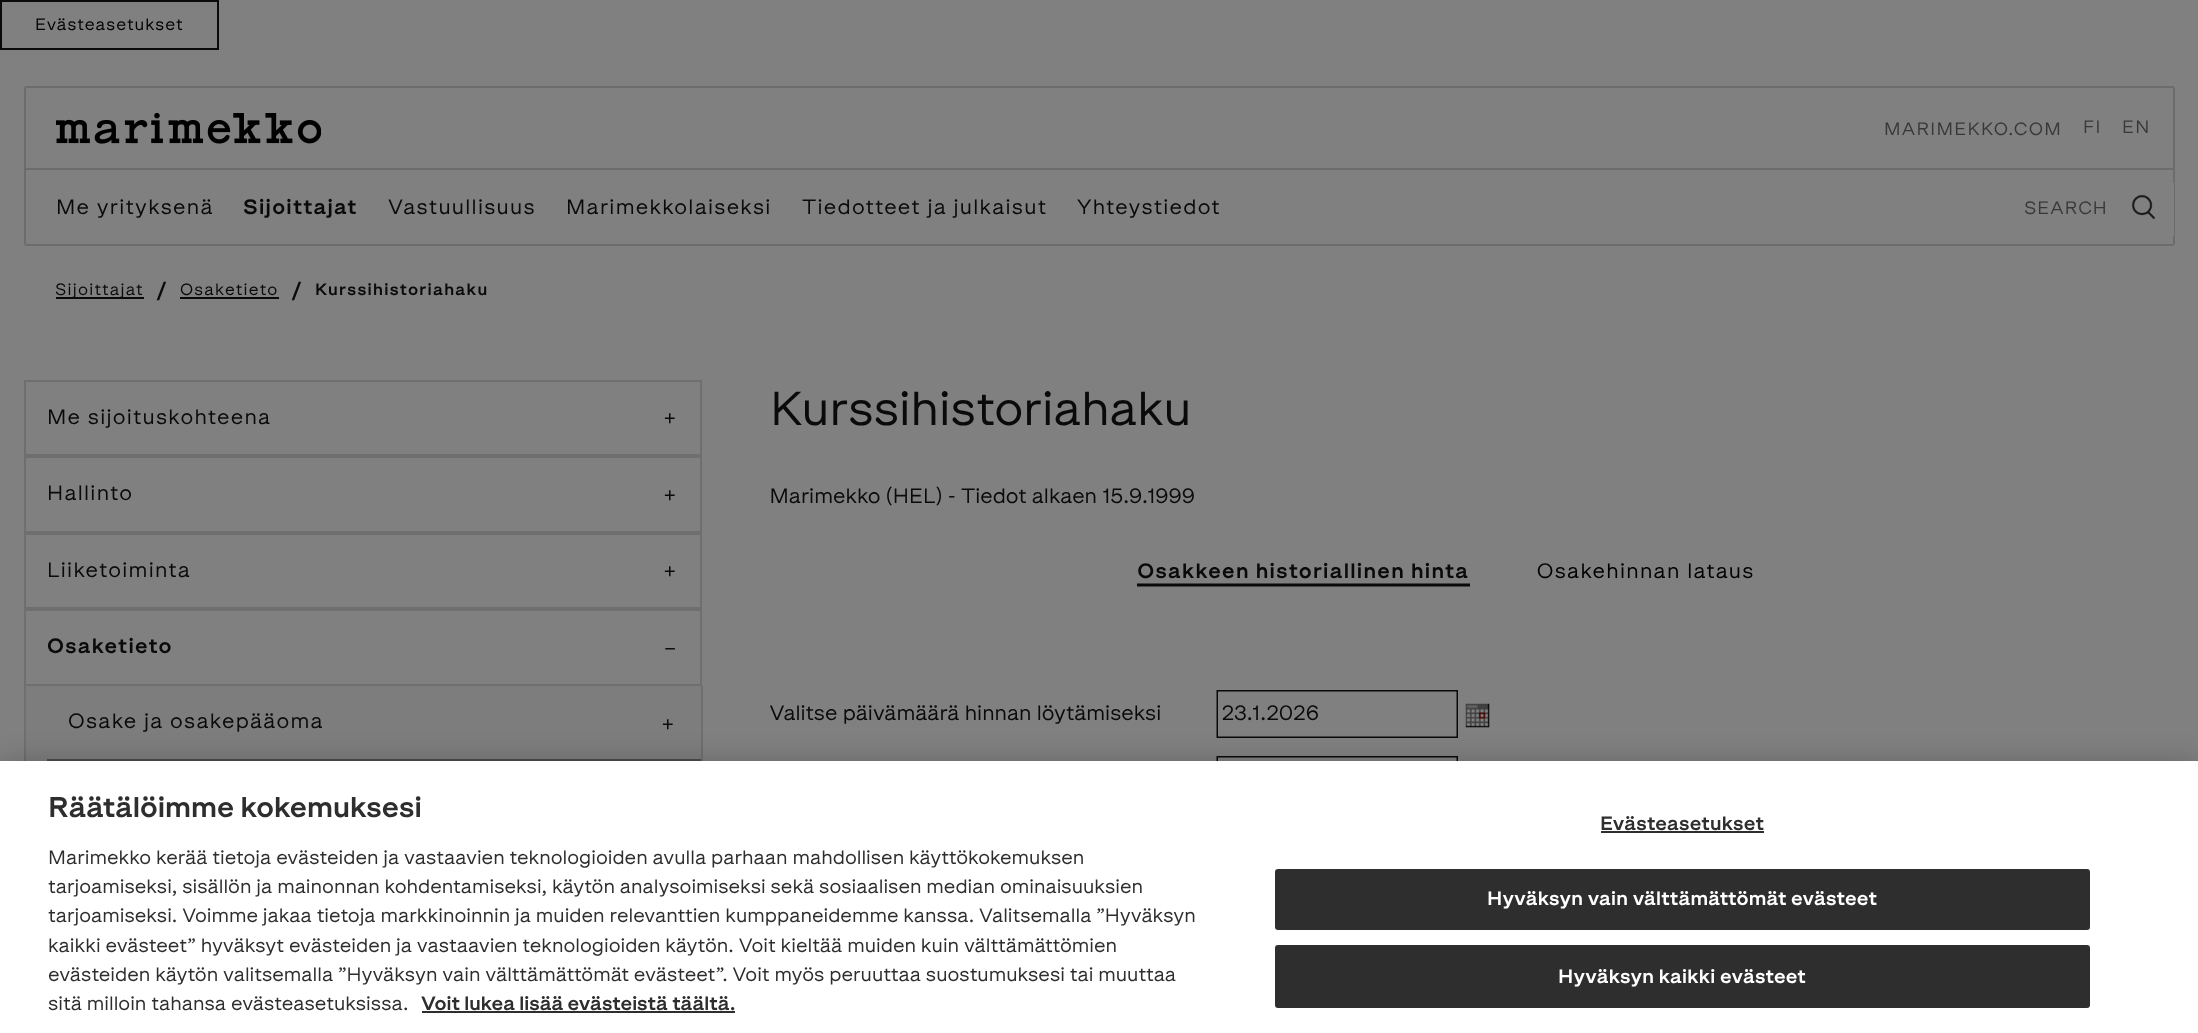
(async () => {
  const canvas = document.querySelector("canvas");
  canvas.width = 2198;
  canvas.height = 1033;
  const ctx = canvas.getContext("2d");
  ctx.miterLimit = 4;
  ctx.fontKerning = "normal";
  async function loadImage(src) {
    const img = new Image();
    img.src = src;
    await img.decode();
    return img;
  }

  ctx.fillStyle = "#808080";
  ctx.fillRect(0, 0, 2198, 1033);
  ctx.strokeStyle = "#0a0a0a";
  ctx.lineWidth = 2;
  ctx.strokeRect(1, 1, 217, 48);
  ctx.beginPath();
  ctx.roundRect(25, 87, 2149, 82, [2, 2, 0, 0]);
  ctx.strokeStyle = "#6c6c6c";
  ctx.stroke();
  ctx.drawImage(await loadImage("img/1.png"), 56, 112, 265, 32);
  ctx.beginPath();
  ctx.roundRect(25, 169, 2149, 76, [0, 0, 2, 2]);
  ctx.fill();
  ctx.stroke();
  ctx.fillRect(2173, 183, 1, 53);
  ctx.drawImage(await loadImage("img/2.png"), 2132, 194, 23, 26);
  ctx.fillStyle = "#0a0a0a";
  ctx.fillRect(56, 297, 88, 2);
  ctx.fillRect(180, 297, 99, 2);
  ctx.strokeStyle = "#6f6f6f";
  ctx.strokeRect(25, 381, 676, 74);
  ctx.strokeRect(25, 457, 676, 75);
  ctx.strokeRect(25, 534, 676, 74);
  ctx.strokeRect(25, 610, 676, 75);
  for (const [x, y, w, h, color] of [
    [26, 686, 675, 75, "#7d7d7d"],
    [701, 686, 2, 75, "#6f6f6f"],
    [24, 686, 2, 75, "#6f6f6f"],
    [47, 759, 654, 2, "#4c4c4c"],
  ]) {
    ctx.fillStyle = color;
    ctx.fillRect(x, y, w, h);
  }
  ctx.drawImage(await loadImage("img/3.png"), 770, 486, 983, 275);
  ctx.fillStyle = "rgba(0, 0, 0, 0.2)";
  ctx.filter = "blur(13.5px)";
  ctx.beginPath();
  ctx.rect(0, 761, 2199, 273);
  ctx.fill();
  ctx.filter = "none";
  for (const [x, y, w, h, color] of [
    [0, 761, 2198, 272, "#ffffff"],
    [422, 1011, 313, 2, "#2e2e2e"],
    [1601, 831, 163, 2, "#2e2e2e"],
  ]) {
    ctx.fillStyle = color;
    ctx.fillRect(x, y, w, h);
  }
  ctx.beginPath();
  ctx.roundRect(1276, 870, 813, 59, 2);
  ctx.fill();
  ctx.strokeStyle = "#2e2e2e";
  ctx.stroke();
  ctx.beginPath();
  ctx.roundRect(1276, 946, 813, 61, 2);
  ctx.fill();
  ctx.stroke();
  ctx.letterSpacing = "1px";
  ctx.font = "16.75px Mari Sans";
  ctx.fillStyle = "#000000";
  ctx.fillText("Evästeasetukset", 35, 30);
  ctx.letterSpacing = "1.25px";
  ctx.font = "18px Mari Sans";
  ctx.fillStyle = "#383838";
  for (const [text, x, y] of [
    ["MARIMEKKO.COM", 1884, 135],
    ["FI", 2083, 133],
    ["EN", 2122, 133],
  ]) {
    ctx.fillText(text, x, y);
  }
  ctx.font = "21px Mari Sans";
  ctx.fillStyle = "#0a0a0a";
  ctx.fillText("Me yrityksenä", 56, 214);
  ctx.font = "bold 21px Mari Sans";
  ctx.fillText("Sijoittajat", 243, 214);
  ctx.font = "21px Mari Sans";
  for (const [text, x, y] of [
    ["Vastuullisuus", 388, 214],
    ["Marimekkolaiseksi", 566, 214],
    ["Tiedotteet ja julkaisut", 802, 214],
    ["Yhteystiedot", 1077, 214],
  ]) {
    ctx.fillText(text, x, y);
  }
  ctx.letterSpacing = "1px";
  ctx.font = "18px Mari Sans";
  ctx.fillStyle = "#383838";
  ctx.fillText("SEARCH", 2024, 214);
  ctx.letterSpacing = "1.25px";
  ctx.font = "16.5px Mari Sans";
  ctx.fillStyle = "#0a0a0a";
  ctx.fillText("Sijoittajat", 55, 295);
  ctx.font = "bold 21px Mari Sans";
  ctx.fillText("/", 156, 298);
  ctx.font = "16.5px Mari Sans";
  ctx.fillText("Osaketieto", 180, 295);
  ctx.font = "bold 21px Mari Sans";
  ctx.fillText("/", 291, 298);
  ctx.font = "bold 16.5px Mari Sans";
  ctx.fillText("Kurssihistoriahaku", 315, 295);
  ctx.font = "21px Mari Sans";
  for (const [text, x, y] of [
    ["Me sijoituskohteena", 47, 424],
    ["+", 663, 425],
    ["Hallinto", 47, 500],
    ["+", 663, 502],
    ["Liiketoiminta", 47, 577],
    ["+", 663, 578],
  ]) {
    ctx.fillText(text, x, y);
  }
  ctx.font = "bold 21px Mari Sans";
  ctx.fillText("Osaketieto", 47, 653);
  ctx.font = "21px Mari Sans";
  for (const [text, x, y] of [
    ["–", 664, 655],
    ["Osake ja osakepääoma", 68, 728],
    ["+", 661, 731],
  ]) {
    ctx.fillText(text, x, y);
  }
  ctx.letterSpacing = "0px";
  ctx.font = "48px Mari Sans";
  ctx.fillText("Kurssihistoriahaku", 770, 425);
  ctx.font = "bold 28.75px Mari Sans";
  ctx.fillStyle = "#2e2e2e";
  ctx.fillText("Räätälöimme kokemuksesi", 48, 817);
  ctx.font = "19.5px Mari Sans";
  for (const [text, x, y] of [
    ["Marimekko kerää tietoja evästeiden ja vastaavien teknologioiden avulla parhaan mahdollisen käyttökokemuksen", 48, 864],
    ["tarjoamiseksi, sisällön ja mainonnan kohdentamiseksi, käytön analysoimiseksi sekä sosiaalisen median ominaisuuksien", 48, 893],
    ["tarjoamiseksi. Voimme jakaa tietoja markkinoinnin ja muiden relevanttien kumppaneidemme kanssa. Valitsemalla ”Hyväksyn", 48, 922],
    ["kaikki evästeet” hyväksyt evästeiden ja vastaavien teknologioiden käytön. Voit kieltää muiden kuin välttämättömien", 48, 952],
    ["evästeiden käytön valitsemalla ”Hyväksyn vain välttämättömät evästeet”. Voit myös peruuttaa suostumuksesi tai muuttaa", 48, 981],
    ["sitä milloin tahansa evästeasetuksissa.", 48, 1010],
  ]) {
    ctx.fillText(text, x, y);
  }
  ctx.font = "bold 19.5px Mari Sans";
  ctx.fillText("Voit lukea lisää evästeistä täältä.", 421, 1010);
  ctx.letterSpacing = "0.2px";
  ctx.fillText("Evästeasetukset", 1600, 830);
  ctx.fillStyle = "#ffffff";
  ctx.fillText("Hyväksyn vain välttämättömät evästeet", 1487, 905);
  ctx.fillText("Hyväksyn kaikki evästeet", 1558, 983);
})();
